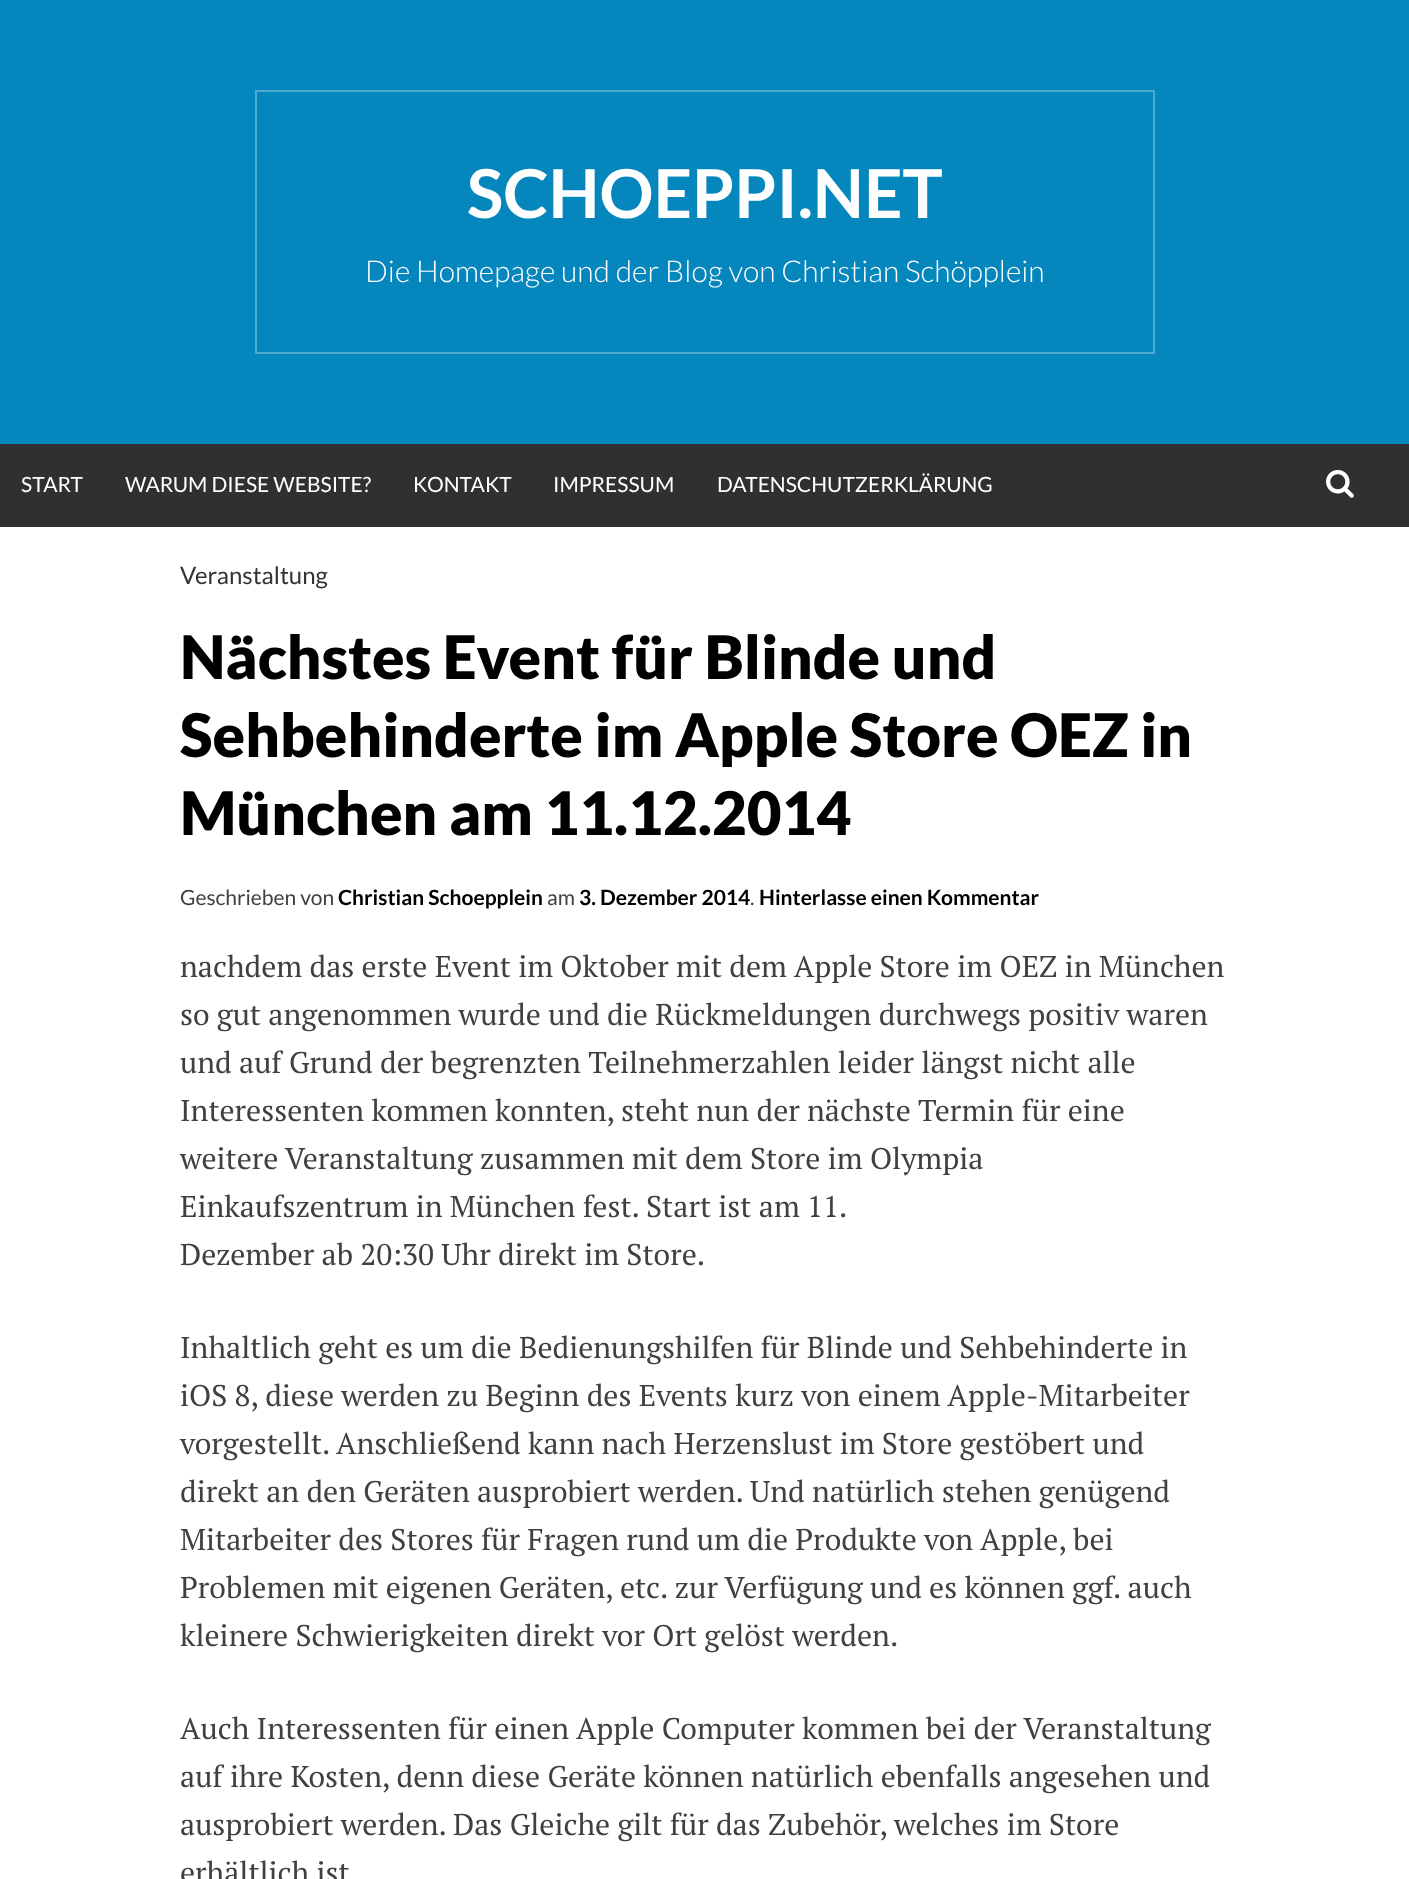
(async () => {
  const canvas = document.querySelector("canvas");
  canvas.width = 1409;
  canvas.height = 1879;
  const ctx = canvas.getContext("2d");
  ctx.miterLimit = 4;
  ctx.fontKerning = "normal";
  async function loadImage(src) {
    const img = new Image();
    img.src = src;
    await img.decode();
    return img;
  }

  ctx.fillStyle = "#0586bd";
  ctx.fillRect(0, 0, 1409, 1879);
  ctx.strokeStyle = "#50aad1";
  ctx.lineWidth = 2;
  ctx.strokeRect(256, 91, 898, 262);
  ctx.fillStyle = "#303030";
  ctx.fillRect(0, 444, 1409, 83);
  ctx.drawImage(await loadImage("img/1.png"), 1326, 469, 28, 29);
  ctx.fillStyle = "#ffffff";
  ctx.fillRect(0, 527, 1409, 1352);
  ctx.font = "bold 67.5px Lato";
  ctx.fillText("SCHOEPPI.NET", 467, 218);
  ctx.font = "300 30px Lato";
  ctx.fillText("Die Homepage und der Blog von Christian Schöpplein", 365, 282);
  ctx.font = "21px Lato";
  for (const [text, x, y] of [
    ["START", 21, 492],
    ["WARUM DIESE WEBSITE?", 125, 492],
    ["KONTAKT", 413, 492],
    ["IMPRESSUM", 553, 492],
    ["DATENSCHUTZERKLÄRUNG", 717, 492],
  ]) {
    ctx.fillText(text, x, y);
  }
  ctx.font = "24px Lato";
  ctx.fillStyle = "#333333";
  ctx.fillText("Veranstaltung", 180, 584);
  ctx.font = "900 60px Lato";
  ctx.fillStyle = "#000000";
  for (const [text, x, y] of [
    ["Nächstes Event für Blinde und", 180, 679],
    ["Sehbehinderte im Apple Store OEZ in", 180, 757],
    ["München am 11.12.2014", 180, 835],
  ]) {
    ctx.fillText(text, x, y);
  }
  ctx.font = "21px Lato";
  ctx.fillStyle = "#404040";
  ctx.fillText("Geschrieben von", 180, 905);
  ctx.font = "bold 21px Lato";
  ctx.fillStyle = "#000000";
  ctx.fillText("Christian Schoepplein", 338, 905);
  ctx.font = "21px Lato";
  ctx.fillStyle = "#404040";
  ctx.fillText("am", 547, 905);
  ctx.font = "bold 21px Lato";
  ctx.fillStyle = "#000000";
  ctx.fillText("3. Dezember 2014", 579, 905);
  ctx.font = "21px Lato";
  ctx.fillStyle = "#404040";
  ctx.fillText(".", 750, 905);
  ctx.font = "bold 21px Lato";
  ctx.fillStyle = "#000000";
  ctx.fillText("Hinterlasse einen Kommentar", 759, 905);
  ctx.font = "30px PT Serif";
  ctx.fillStyle = "#404040";
  for (const [text, x, y] of [
    ["nachdem das erste Event im Oktober mit dem Apple Store im OEZ in München", 180, 977],
    ["so gut angenommen wurde und die Rückmeldungen durchwegs positiv waren", 180, 1025],
    ["und auf Grund der begrenzten Teilnehmerzahlen leider längst nicht alle", 180, 1073],
    ["Interessenten kommen konnten, steht nun der nächste Termin für eine", 180, 1121],
    ["weitere Veranstaltung zusammen mit dem Store im Olympia", 180, 1169],
    ["Einkaufszentrum in München fest. Start ist am 11.", 180, 1217],
    ["Dezember ab 20:30 Uhr direkt im Store.", 180, 1265],
    ["Inhaltlich geht es um die Bedienungshilfen für Blinde und Sehbehinderte in", 180, 1358],
    ["iOS 8, diese werden zu Beginn des Events kurz von einem Apple-Mitarbeiter", 180, 1406],
    ["vorgestellt. Anschließend kann nach Herzenslust im Store gestöbert und", 180, 1454],
    ["direkt an den Geräten ausprobiert werden. Und natürlich stehen genügend", 180, 1502],
    ["Mitarbeiter des Stores für Fragen rund um die Produkte von Apple, bei", 180, 1550],
    ["Problemen mit eigenen Geräten, etc. zur Verfügung und es können ggf. auch", 180, 1598],
    ["kleinere Schwierigkeiten direkt vor Ort gelöst werden.", 180, 1646],
    ["Auch Interessenten für einen Apple Computer kommen bei der Veranstaltung", 180, 1739],
    ["auf ihre Kosten, denn diese Geräte können natürlich ebenfalls angesehen und", 180, 1787],
    ["ausprobiert werden. Das Gleiche gilt für das Zubehör, welches im Store", 180, 1835],
    ["erhältlich ist", 180, 1883],
  ]) {
    ctx.fillText(text, x, y);
  }
})();
